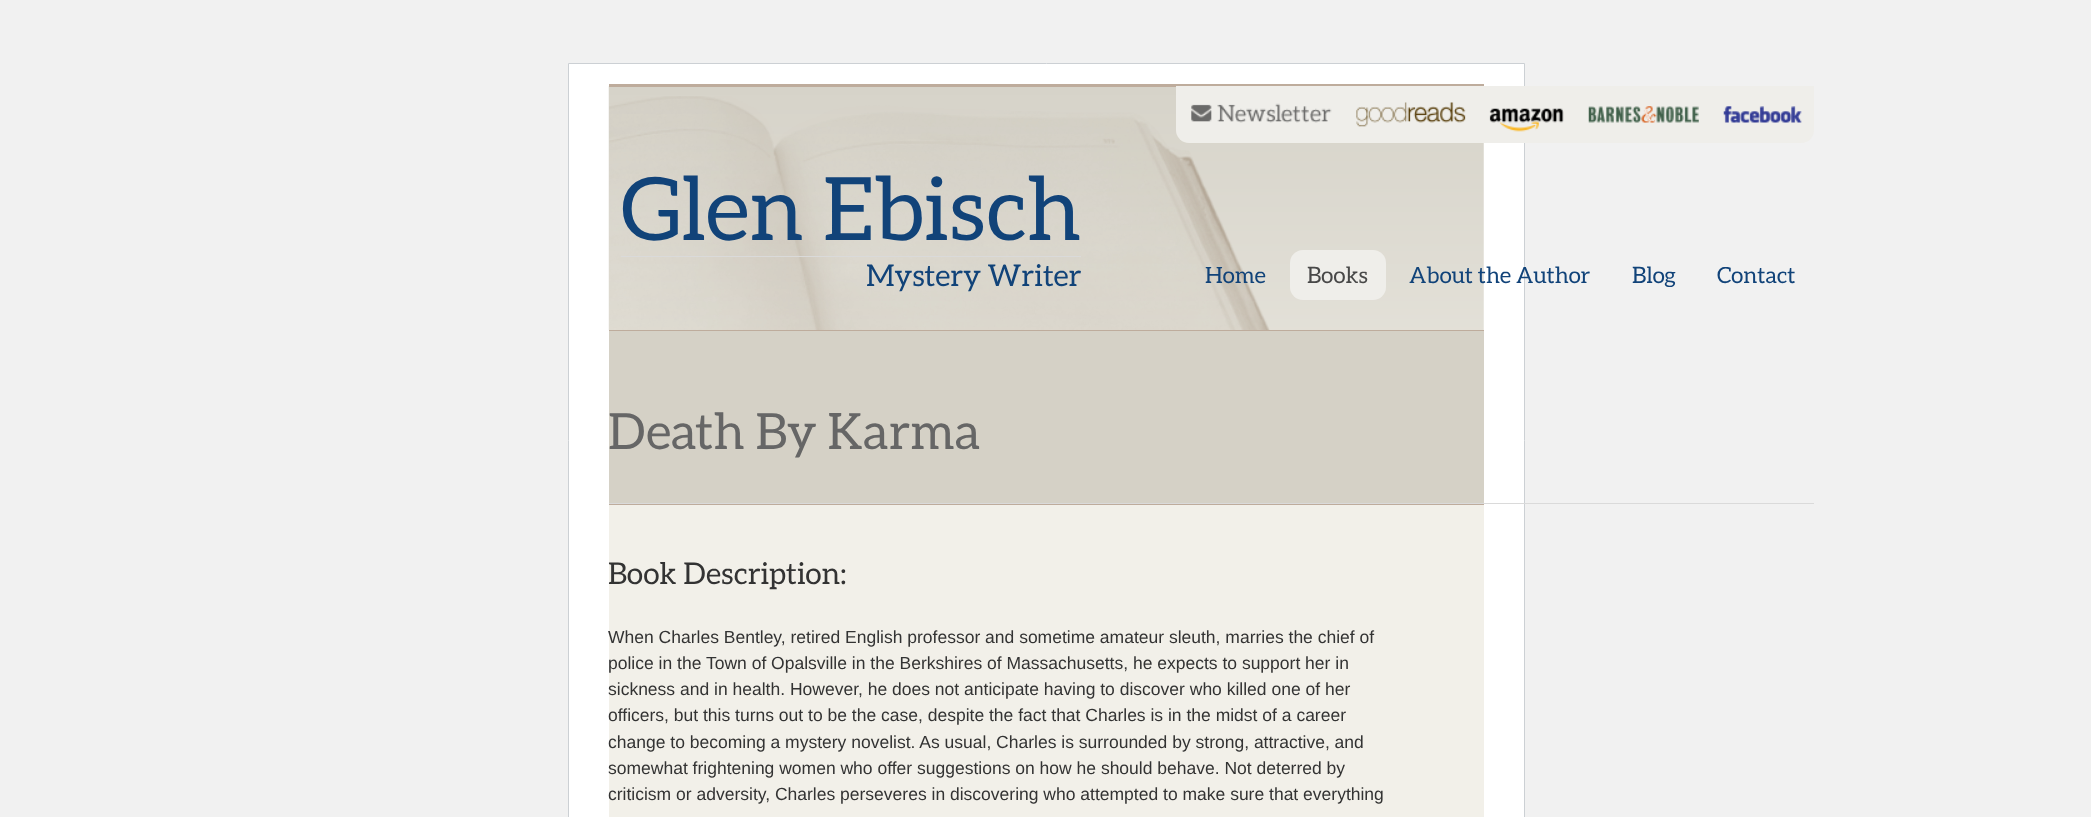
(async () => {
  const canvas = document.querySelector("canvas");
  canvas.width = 2091;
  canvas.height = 817;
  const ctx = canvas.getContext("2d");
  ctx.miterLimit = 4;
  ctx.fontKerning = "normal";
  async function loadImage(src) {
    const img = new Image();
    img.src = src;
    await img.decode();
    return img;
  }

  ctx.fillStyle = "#f1f1f1";
  ctx.fillRect(0, 0, 2091, 817);
  ctx.fillStyle = "#ffffff";
  ctx.beginPath();
  ctx.rect(568.5, 63.5, 956, 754);
  ctx.fill();
  ctx.strokeStyle = "#ccd0d4";
  ctx.stroke();
  ctx.drawImage(await loadImage("img/1.png"), 608, 86, 876, 244);
  ctx.fillStyle = "#beac9c";
  ctx.fillRect(609, 84, 875, 3);
  ctx.fillRect(609, 330, 875, 1);
  ctx.drawImage(await loadImage("img/2.png"), 609, 96, 661, 234);
  ctx.fillStyle = "#dadada";
  ctx.fillRect(621, 256, 460, 1);
  ctx.fillStyle = "#efeeea";
  ctx.beginPath();
  ctx.roundRect(1176, 86, 638, 57, [0, 0, 13, 13]);
  ctx.fill();
  ctx.drawImage(await loadImage("img/3.png"), 1191, 103, 141, 20);
  ctx.drawImage(await loadImage("img/4.png"), 1356, 102, 110, 25);
  ctx.drawImage(await loadImage("img/5.png"), 1489, 108, 75, 24);
  ctx.drawImage(await loadImage("img/6.png"), 1588, 106, 111, 17);
  ctx.drawImage(await loadImage("img/7.png"), 1723, 106, 79, 17);
  ctx.beginPath();
  ctx.roundRect(1290, 250, 96, 50, 13);
  ctx.fill();
  for (const [x, y, w, h, color] of [
    [609, 505, 875, 312, "#f2f0e9"],
    [609, 331, 875, 172, "#d5d1c6"],
    [609, 504, 875, 1, "#beac9c"],
    [609, 503, 1205, 1, "#dadada"],
  ]) {
    ctx.fillStyle = color;
    ctx.fillRect(x, y, w, h);
  }
  ctx.font = "87.5px Aleo";
  ctx.fillStyle = "#114379";
  ctx.fillText("Glen Ebisch", 621, 240);
  ctx.font = "30px Aleo";
  ctx.fillText("Mystery Writer", 866, 286);
  ctx.font = "22.5px Aleo";
  ctx.fillText("Home", 1205, 283);
  ctx.fillStyle = "#484848";
  ctx.fillText("Books", 1307, 283);
  ctx.fillStyle = "#114379";
  for (const [text, x, y] of [
    ["About the Author", 1409, 283],
    ["Blog", 1632, 283],
    ["Contact", 1717, 283],
  ]) {
    ctx.fillText(text, x, y);
  }
  ctx.font = "50px Aleo";
  ctx.fillStyle = "#666666";
  ctx.fillText("Death By Karma", 608, 449);
  ctx.font = "30px Aleo";
  ctx.fillStyle = "#333333";
  ctx.fillText("Book Description:", 608, 584);
  ctx.font = "17.5px Liberation Sans";
  for (const [text, x, y] of [
    ["When Charles Bentley, retired English professor and sometime amateur sleuth, marries the chief of", 608, 643],
    ["police in the Town of Opalsville in the Berkshires of Massachusetts, he expects to support her in", 608, 669],
    ["sickness and in health. However, he does not anticipate having to discover who killed one of her", 608, 695],
    ["officers, but this turns out to be the case, despite the fact that Charles is in the midst of a career", 608, 721],
    ["change to becoming a mystery novelist. As usual, Charles is surrounded by strong, attractive, and", 608, 748],
    ["somewhat frightening women who offer suggestions on how he should behave. Not deterred by", 608, 774],
    ["criticism or adversity, Charles perseveres in discovering who attempted to make sure that everything", 608, 800],
  ]) {
    ctx.fillText(text, x, y);
  }
})();
